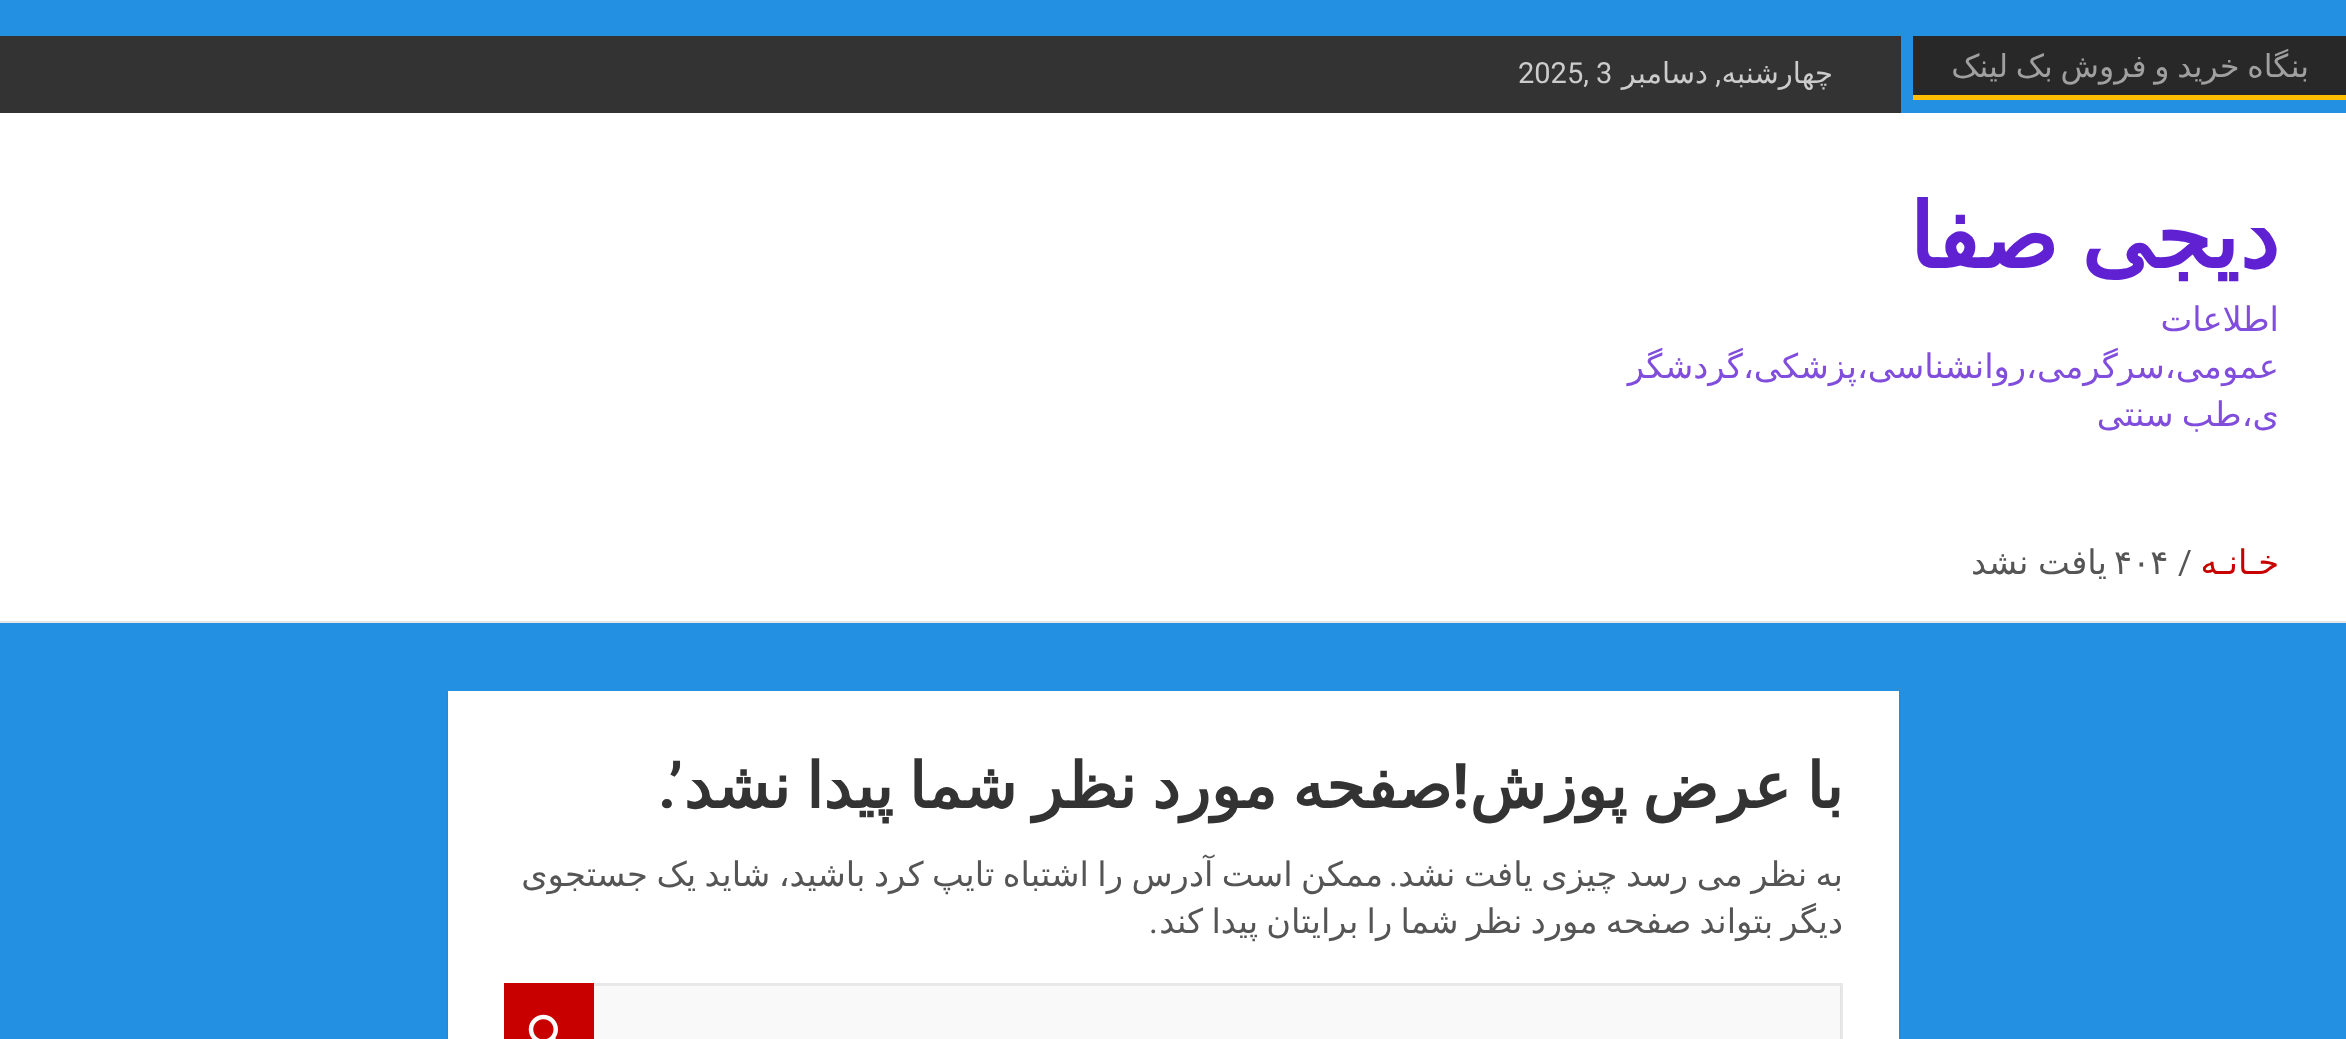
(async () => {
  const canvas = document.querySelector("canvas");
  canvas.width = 2346;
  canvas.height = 1039;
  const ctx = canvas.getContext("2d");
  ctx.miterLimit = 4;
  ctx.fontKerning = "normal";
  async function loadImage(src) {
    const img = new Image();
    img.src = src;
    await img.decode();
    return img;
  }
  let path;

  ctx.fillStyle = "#2490e2";
  ctx.fillRect(0, 0, 2346, 1039);
  for (const [x, y, w, h, color] of [
    [1913, 36, 433, 59, "#282828"],
    [1913, 95, 433, 5, "#ffbf00"],
    [0, 36, 1901, 77, "#333333"],
    [0, 113, 2346, 508, "#ffffff"],
    [0, 621, 2346, 2, "#e6e6e6"],
  ]) {
    ctx.fillStyle = color;
    ctx.fillRect(x, y, w, h);
  }
  ctx.fillStyle = "rgba(0, 0, 0, 0.1)";
  ctx.filter = "blur(1px)";
  ctx.beginPath();
  ctx.rect(448, 693, 1451, 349);
  ctx.fill();
  ctx.filter = "none";
  ctx.fillStyle = "#ffffff";
  ctx.fillRect(448, 691, 1451, 348);
  ctx.fillStyle = "#f9f9f9";
  ctx.fillRect(594, 986, 1247, 53);
  ctx.fillStyle = "#e8e8e8";
  path = new Path2D("M594 983H1843L1840 986H594Z");
  ctx.fill(path);
  ctx.fillStyle = "rgba(0, 0, 0, 0.09)";
  path = new Path2D("M1843 983V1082L1840 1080V986Z");
  ctx.fill(path);
  ctx.fillStyle = "#c80000";
  ctx.fillRect(504, 983, 90, 56);
  ctx.drawImage(await loadImage("img/1.png"), 528, 1014, 30, 25);
  ctx.wordSpacing = "-2.25px";
  ctx.direction = "rtl";
  ctx.font = "31.5px DejaVu Sans";
  ctx.fillStyle = "#a0a0a0";
  ctx.fillText("بنگاه خرید و فروش بک لینک", 2309, 77);
  ctx.wordSpacing = "0px";
  ctx.font = "29px DejaVu Sans";
  ctx.fillStyle = "#cccccc";
  ctx.fillText("چهارشنبه", 1833, 83);
  ctx.font = "29px Roboto";
  ctx.fillText(",", 1721, 83);
  ctx.font = "29px DejaVu Sans";
  ctx.fillText("دسامبر", 1708, 83);
  ctx.direction = "ltr";
  ctx.font = "29px Roboto";
  ctx.fillText("2025, 3", 1518, 83);
  ctx.wordSpacing = "-6px";
  ctx.direction = "rtl";
  ctx.font = "bold 90px DejaVu Sans";
  ctx.fillStyle = "#6021d3";
  ctx.fillText("دیجی صفا", 2279, 268);
  ctx.wordSpacing = "0px";
  ctx.font = "33.75px DejaVu Sans";
  ctx.fillStyle = "#804ddc";
  ctx.fillText("اطلاعات", 2279, 331);
  ctx.fillText("عمومی،سرگرمی،روانشناسی،پزشکی،گردشگر", 2279, 378);
  ctx.wordSpacing = "-2.5px";
  ctx.fillText("ی،طب سنتی", 2279, 426);
  ctx.wordSpacing = "0px";
  ctx.fillStyle = "#c80000";
  ctx.fillText("خـانـه", 2279, 574);
  ctx.direction = "ltr";
  ctx.font = "33.75px Roboto";
  ctx.fillStyle = "#555555";
  ctx.fillText("/", 2178, 574);
  ctx.font = "33.75px DejaVu Sans";
  ctx.fillText("۴۰۴", 2114, 574);
  ctx.wordSpacing = "-1px";
  ctx.direction = "rtl";
  ctx.fillText("یافت نشد", 2107, 574);
  ctx.wordSpacing = "-4.5px";
  ctx.font = "bold 63px DejaVu Sans";
  ctx.fillStyle = "#333333";
  ctx.fillText("با عرض پوزش", 1843, 808);
  ctx.wordSpacing = "0px";
  ctx.font = "bold 63px Roboto";
  ctx.fillText("!", 1469, 808);
  ctx.wordSpacing = "-4.5px";
  ctx.font = "bold 63px DejaVu Sans";
  ctx.fillText("صفحه مورد نظر شما پیدا نشد", 1452, 808);
  ctx.wordSpacing = "0px";
  ctx.font = "bold 63px Roboto";
  ctx.fillText("’.", 683, 808);
  ctx.wordSpacing = "-2.25px";
  ctx.font = "33.75px DejaVu Sans";
  ctx.fillStyle = "#555555";
  ctx.fillText("به نظر می رسد چیزی یافت نشد", 1843, 886);
  ctx.wordSpacing = "0px";
  ctx.font = "33.75px Roboto";
  ctx.fillText(".", 1398, 886);
  ctx.wordSpacing = "-2.25px";
  ctx.font = "33.75px DejaVu Sans";
  ctx.fillText("ممکن است آدرس را اشتباه تایپ کرد باشید، شاید یک جستجوی", 1383, 886);
  ctx.wordSpacing = "-2.5px";
  ctx.fillText("دیگر بتواند صفحه مورد نظر شما را برایتان پیدا کند", 1843, 933);
  ctx.wordSpacing = "0px";
  ctx.font = "33.75px Roboto";
  ctx.fillText(".", 1158, 933);
})();
